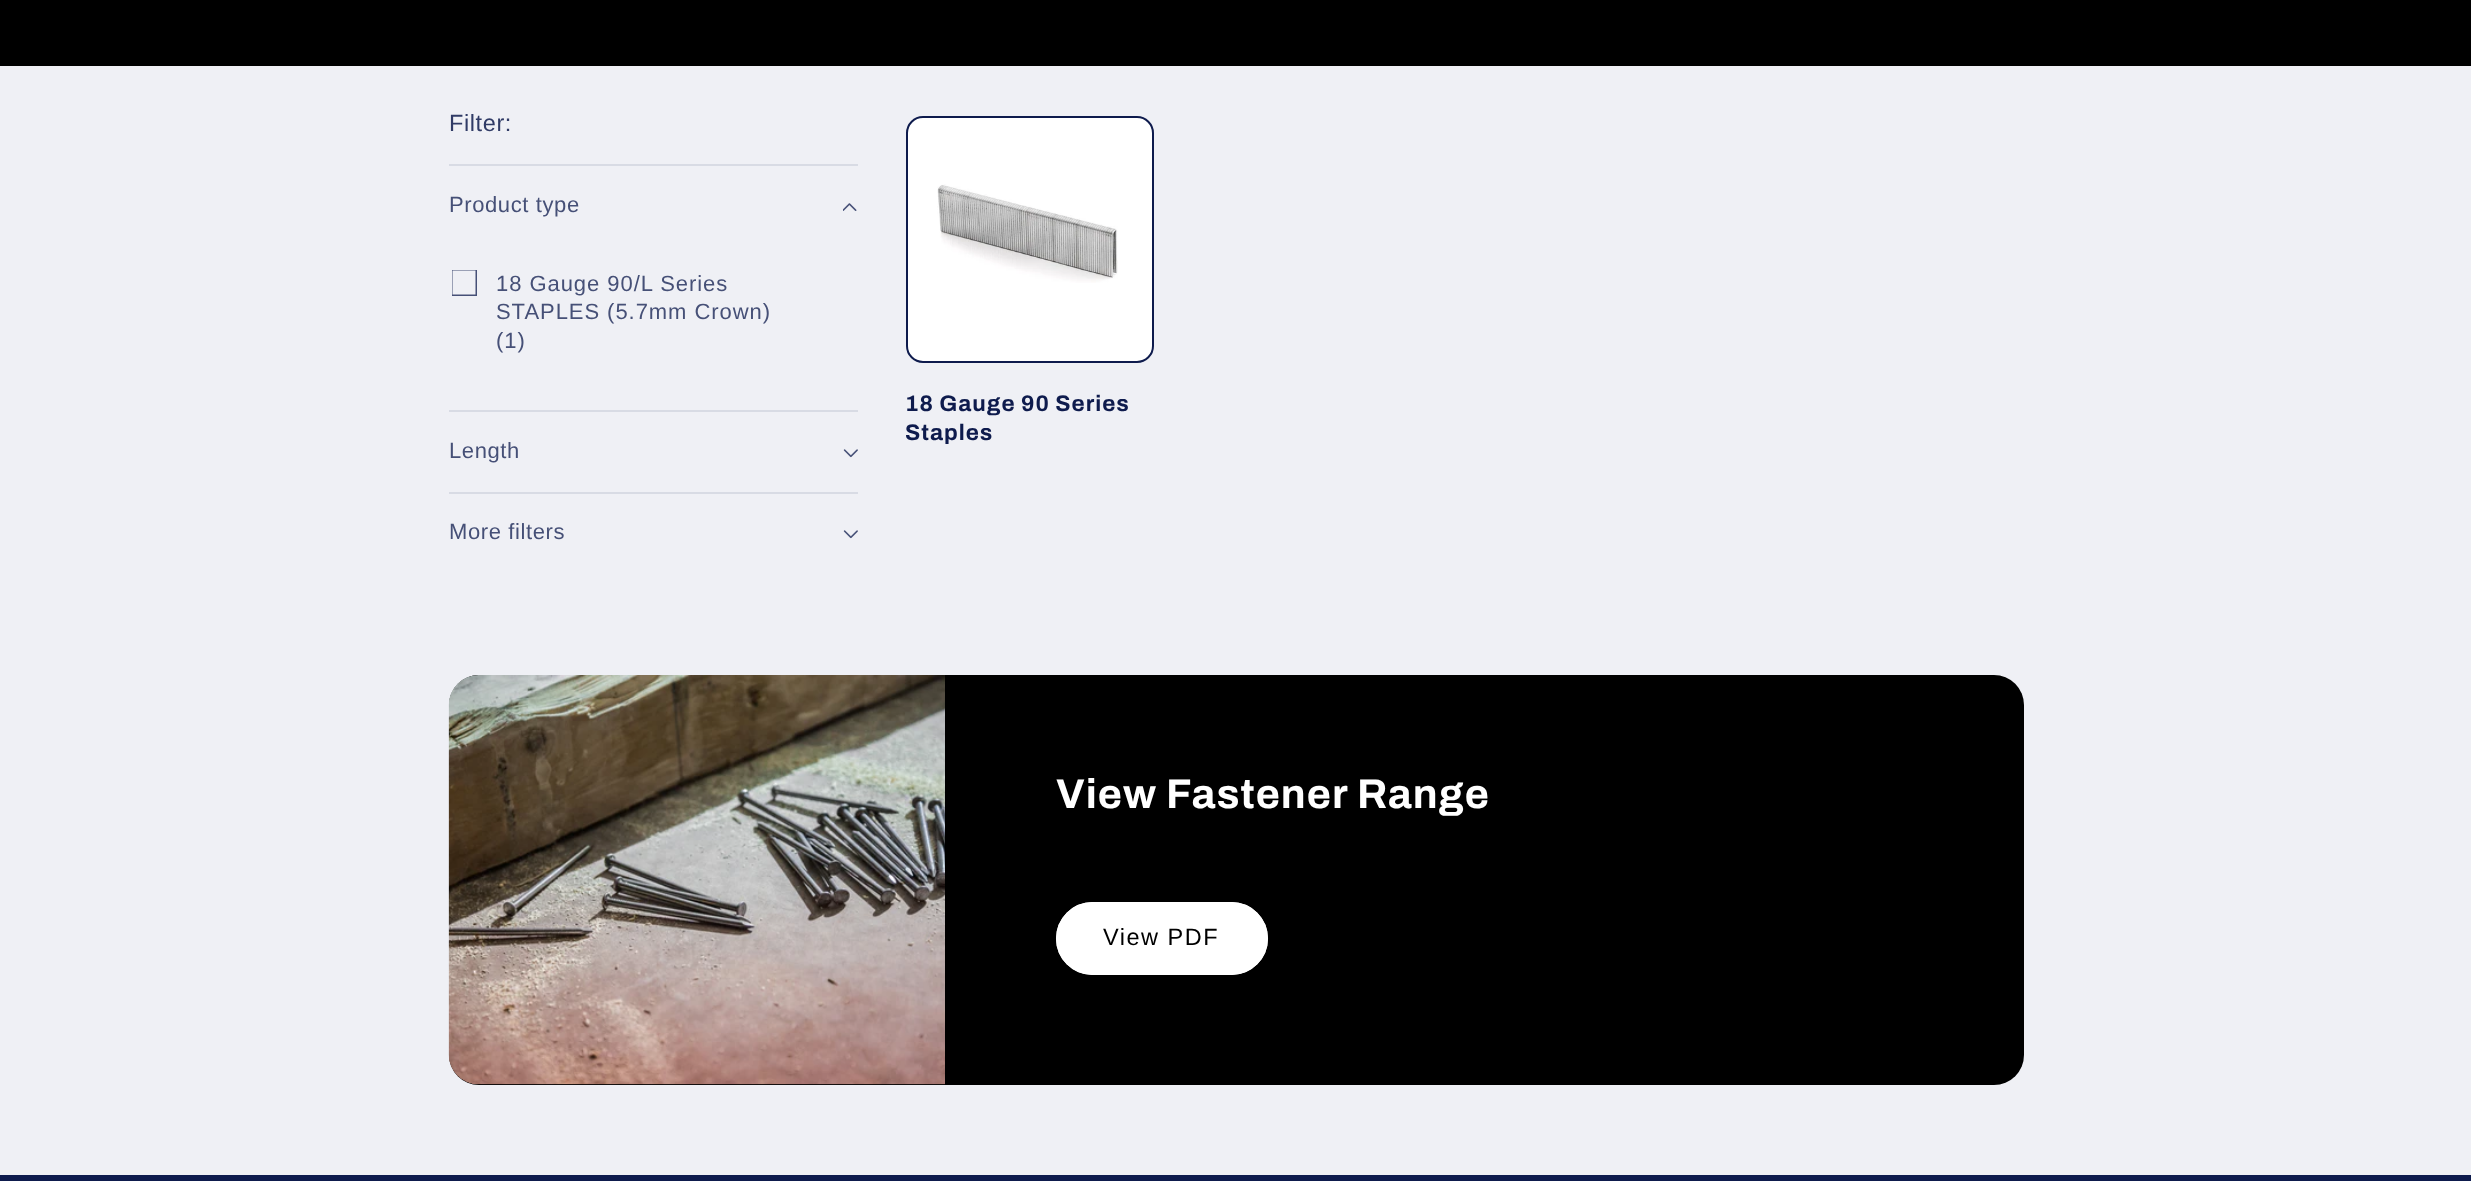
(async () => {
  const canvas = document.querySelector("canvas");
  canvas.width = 2471;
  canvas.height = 1181;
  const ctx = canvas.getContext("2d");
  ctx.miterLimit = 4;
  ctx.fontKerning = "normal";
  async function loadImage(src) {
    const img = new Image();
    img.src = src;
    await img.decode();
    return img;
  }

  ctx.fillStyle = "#eff0f5";
  ctx.fillRect(0, 0, 2471, 1181);
  ctx.fillStyle = "#000000";
  ctx.fillRect(0, 0, 2471, 66);
  ctx.fillStyle = "#d8dbe4";
  ctx.fillRect(449, 164, 409, 2);
  ctx.drawImage(await loadImage("img/1.png"), 843, 203, 14, 8);
  ctx.save();
  ctx.beginPath();
  ctx.rect(452, 270, 25, 26);
  ctx.clip();
  ctx.strokeStyle = "#465077";
  ctx.lineWidth = 1.5;
  ctx.strokeRect(451.75, 269.75, 24.5, 25.5);
  ctx.restore();
  ctx.fillRect(449, 410, 409, 2);
  ctx.drawImage(await loadImage("img/2.png"), 843, 449, 15, 9);
  ctx.fillRect(449, 492, 409, 2);
  ctx.drawImage(await loadImage("img/2.png"), 843, 530, 15, 9);
  ctx.fillStyle = "#ffffff";
  ctx.beginPath();
  ctx.roundRect(907, 117, 246, 245, 16);
  ctx.fill();
  ctx.strokeStyle = "#0e1b4d";
  ctx.lineWidth = 2;
  ctx.stroke();
  ctx.drawImage(await loadImage("img/3.png"), 937, 184, 181, 99);
  ctx.fillStyle = "#000000";
  ctx.beginPath();
  ctx.roundRect(449, 675, 496, 410, [30, 0, 0, 30]);
  ctx.fill();
  ctx.drawImage(await loadImage("img/4.png"), 448, 675, 497, 410);
  ctx.beginPath();
  ctx.roundRect(945, 675, 1079, 410, [0, 30, 30, 0]);
  ctx.fill();
  ctx.fillStyle = "#ffffff";
  ctx.beginPath();
  ctx.roundRect(1056, 902, 212, 73, 36.5);
  ctx.fill();
  ctx.beginPath();
  ctx.roundRect(1057, 903, 210, 71, 35.5);
  ctx.strokeStyle = "#ffffff";
  ctx.stroke();
  ctx.fillStyle = "#0e1b4d";
  ctx.fillRect(0, 1175, 2471, 6);
  ctx.letterSpacing = "0.6px";
  ctx.font = "23.5px Arimo";
  ctx.fillStyle = "#303b66";
  ctx.fillText("Filter:", 449, 131);
  ctx.font = "22px Arimo";
  ctx.fillStyle = "#465077";
  ctx.fillText("Product type", 449, 212);
  ctx.letterSpacing = "0.95px";
  for (const [text, x, y] of [
    ["18 Gauge 90/L Series", 496, 291],
    ["STAPLES (5.7mm Crown)", 496, 319],
    ["(1)", 496, 348],
  ]) {
    ctx.fillText(text, x, y);
  }
  ctx.letterSpacing = "0.6px";
  ctx.fillText("Length", 449, 458);
  ctx.fillText("More filters", 449, 539);
  ctx.letterSpacing = "1px";
  ctx.font = "bold 22.5px Archivo";
  ctx.fillStyle = "#0e1b4d";
  ctx.fillText("18 Gauge 90 Series", 905, 411);
  ctx.fillText("Staples", 905, 440);
  ctx.font = "bold 41.4px Archivo";
  ctx.fillStyle = "#ffffff";
  ctx.fillText("View Fastener Range", 1056, 808);
  ctx.letterSpacing = "1.5px";
  ctx.font = "23.5px Arimo";
  ctx.fillStyle = "#000000";
  ctx.fillText("View PDF", 1103, 945);
})();
